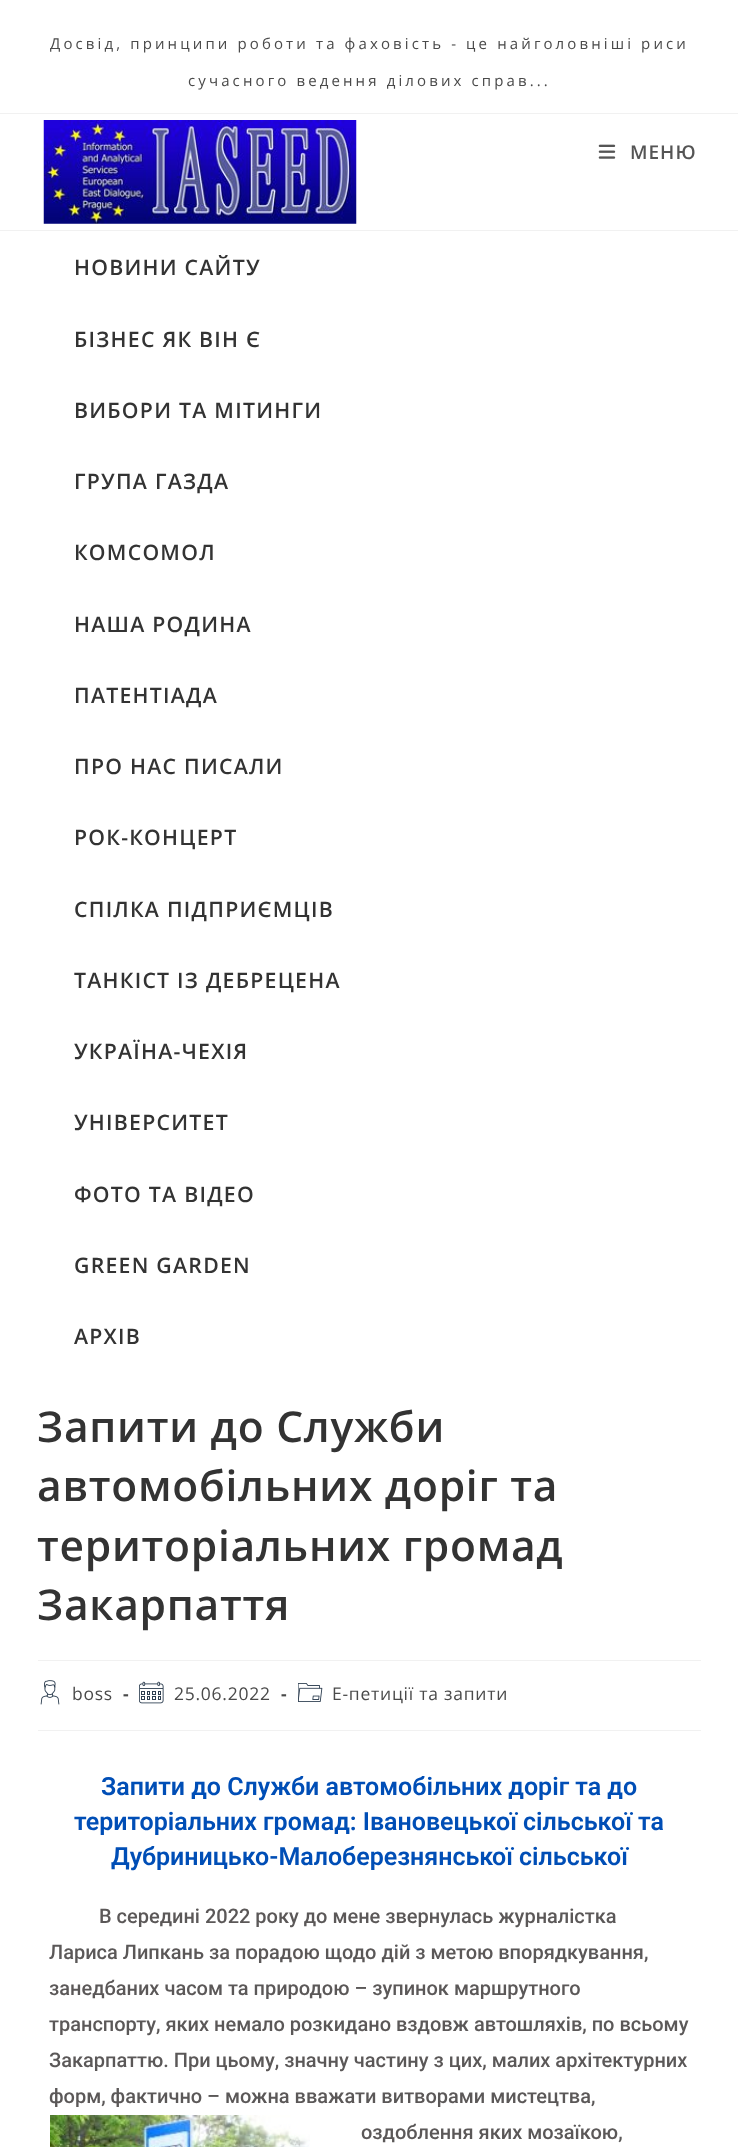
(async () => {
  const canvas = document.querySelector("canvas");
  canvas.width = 738;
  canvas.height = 2147;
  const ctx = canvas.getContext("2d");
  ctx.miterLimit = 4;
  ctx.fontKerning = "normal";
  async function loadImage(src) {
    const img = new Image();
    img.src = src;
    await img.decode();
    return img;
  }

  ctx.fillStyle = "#ffffff";
  ctx.fillRect(0, 0, 738, 2147);
  ctx.fillStyle = "#f1f1f1";
  ctx.fillRect(0, 113, 738, 1);
  ctx.fillRect(0, 230, 738, 1);
  ctx.drawImage(await loadImage("img/1.png"), 43, 120, 314, 104);
  ctx.drawImage(await loadImage("img/2.png"), 598, 144, 18, 15);
  ctx.fillRect(38, 1660, 663, 1);
  ctx.fillRect(38, 1730, 663, 1);
  ctx.drawImage(await loadImage("img/3.png"), 40, 1680, 20, 25);
  ctx.drawImage(await loadImage("img/4.png"), 139, 1681, 25, 23);
  ctx.drawImage(await loadImage("img/5.png"), 298, 1683, 25, 19);
  ctx.drawImage(await loadImage("img/6.png"), 50, 2115, 260, 32);
  ctx.letterSpacing = "3.12px";
  ctx.font = "15px Open Sans";
  ctx.fillStyle = "#4a4a4a";
  ctx.fillText("Досвід, принципи роботи та фаховість - це найголовніші риси", 50, 49);
  ctx.fillText("сучасного ведення ділових справ...", 188, 86);
  ctx.letterSpacing = "1px";
  ctx.font = "600 19px Open Sans";
  ctx.fillStyle = "#555555";
  ctx.fillText("МЕНЮ", 630, 159);
  ctx.letterSpacing = "1.25px";
  ctx.font = "600 21.25px Open Sans";
  ctx.fillStyle = "#333333";
  for (const [text, x, y] of [
    ["НОВИНИ САЙТУ", 74, 275],
    ["БІЗНЕС ЯК ВІН Є", 74, 347],
    ["ВИБОРИ ТА МІТИНГИ", 74, 418],
    ["ГРУПА ГАЗДА", 74, 489],
    ["КОМСОМОЛ", 74, 560],
    ["НАША РОДИНА", 74, 632],
    ["ПАТЕНТІАДА", 74, 703],
    ["ПРО НАС ПИСАЛИ", 74, 774],
    ["РОК-КОНЦЕРТ", 74, 845],
    ["СПІЛКА ПІДПРИЄМЦІВ", 74, 917],
    ["ТАНКІСТ ІЗ ДЕБРЕЦЕНА", 74, 988],
    ["УКРАЇНА-ЧЕХІЯ", 74, 1059],
    ["УНІВЕРСИТЕТ", 74, 1130],
    ["ФОТО ТА ВІДЕО", 74, 1202],
    ["GREEN GARDEN", 74, 1273],
    ["АРХІВ", 74, 1344],
  ]) {
    ctx.fillText(text, x, y);
  }
  ctx.letterSpacing = "0.75px";
  ctx.font = "600 42.5px Open Sans";
  for (const [text, x, y] of [
    ["Запити до Служби", 37, 1442],
    ["автомобільних доріг та", 37, 1501],
    ["територіальних громад", 37, 1561],
    ["Закарпаття", 37, 1620],
  ]) {
    ctx.fillText(text, x, y);
  }
  ctx.font = "17.5px Open Sans";
  ctx.fillStyle = "#4a4a4a";
  ctx.fillText("boss", 72, 1700);
  ctx.font = "bold 17.5px Open Sans";
  ctx.fillText("-", 123, 1700);
  ctx.font = "17.5px Open Sans";
  ctx.fillText("25.06.2022", 174, 1700);
  ctx.font = "bold 17.5px Open Sans";
  ctx.fillText("-", 281, 1700);
  ctx.font = "17.5px Open Sans";
  ctx.fillText("Е-петиції та запити", 332, 1700);
  ctx.letterSpacing = "0px";
  ctx.font = "600 25px Roboto";
  ctx.fillStyle = "#004eb6";
  for (const [text, x, y] of [
    ["Запити до Служби автомобільних доріг та до", 101, 1795],
    ["територіальних громад: Івановецьк", 74, 1830],
    ["ої", 496, 1830],
    ["сільської та", 523, 1830],
    ["Дубриницько-Малоберезнянськ", 111, 1865],
    ["ої", 492, 1865],
    ["сільської", 519, 1865],
  ]) {
    ctx.fillText(text, x, y);
  }
  ctx.font = "500 20px Roboto";
  ctx.fillStyle = "#5b5858";
  for (const [text, x, y] of [
    ["В середині 2022 року до мене звернулась журналістка", 99, 1923],
    ["Лариса Липкань за порадою щодо дій з метою впорядкування,", 49, 1959],
    ["занедбаних часом та природою – зупинок маршрутного", 49, 1995],
    ["транспорту, яких немало розкидано вздовж автошляхів, по всьому", 49, 2031],
    ["Закарпаттю. При цьому, значну частину з цих, малих архітектурних", 49, 2067],
    ["форм, фактично – можна вважати витворами мистецтва,", 49, 2103],
    ["оздоблення яких мозаїкою,", 361, 2139],
  ]) {
    ctx.fillText(text, x, y);
  }
})();
